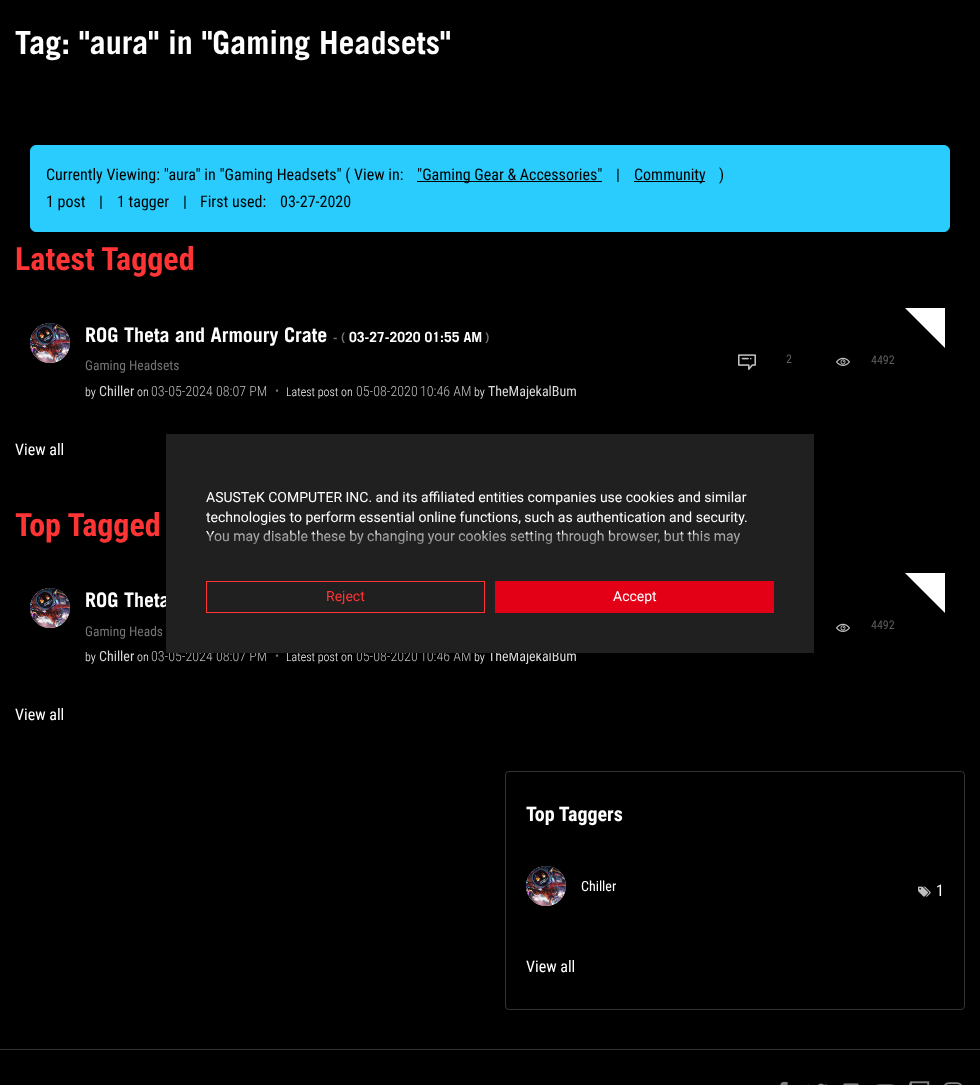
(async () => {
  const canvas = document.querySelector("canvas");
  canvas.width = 980;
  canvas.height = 1085;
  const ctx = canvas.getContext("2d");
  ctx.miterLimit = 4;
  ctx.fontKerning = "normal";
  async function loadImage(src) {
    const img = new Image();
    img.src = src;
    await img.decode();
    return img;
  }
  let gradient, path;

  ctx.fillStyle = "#000000";
  ctx.fillRect(0, 0, 980, 1085);
  ctx.fillStyle = "#29ccfc";
  ctx.beginPath();
  ctx.roundRect(30.5, 145.5, 919, 86, 5.5);
  ctx.fill();
  ctx.strokeStyle = "#29ccfc";
  ctx.stroke();
  ctx.fillStyle = "#000000";
  ctx.fillRect(417, 181, 185, 1);
  ctx.fillRect(634, 181, 71, 1);
  ctx.fillStyle = "#c4c4c4";
  ctx.filter = "blur(0.5px)";
  ctx.beginPath();
  ctx.roundRect(30, 323, 40, 40, 20);
  ctx.fill();
  ctx.filter = "none";
  ctx.drawImage(await loadImage("img/1.png"), 30, 323, 40, 40);
  ctx.drawImage(await loadImage("img/2.png"), 738, 354, 18, 16);
  ctx.drawImage(await loadImage("img/3.png"), 836, 357, 14, 9);
  ctx.fillStyle = "#ffffff";
  path = new Path2D("M905 308H945V348Z");
  ctx.fill(path);
  ctx.fillStyle = "#c4c4c4";
  ctx.filter = "blur(0.5px)";
  ctx.beginPath();
  ctx.roundRect(30, 588, 40, 40, 20);
  ctx.fill();
  ctx.filter = "none";
  ctx.drawImage(await loadImage("img/1.png"), 30, 588, 40, 40);
  ctx.drawImage(await loadImage("img/3.png"), 836, 623, 14, 9);
  ctx.fillStyle = "#ffffff";
  path = new Path2D("M905 573H945V613Z");
  ctx.fill(path);
  ctx.beginPath();
  ctx.roundRect(505.5, 771.5, 459, 238, 3.5);
  ctx.strokeStyle = "#333333";
  ctx.stroke();
  ctx.fillStyle = "#c4c4c4";
  ctx.filter = "blur(0.5px)";
  ctx.beginPath();
  ctx.roundRect(526, 866, 40, 40, 20);
  ctx.fill();
  ctx.filter = "none";
  ctx.drawImage(await loadImage("img/4.png"), 526, 866, 40, 40);
  ctx.drawImage(await loadImage("img/5.png"), 918, 886, 13, 11);
  ctx.fillStyle = "#333333";
  ctx.fillRect(0, 1049, 980, 1);
  ctx.drawImage(await loadImage("img/6.png"), 780, 1081, 8, 4);
  ctx.drawImage(await loadImage("img/7.png"), 807, 1083, 20, 2);
  ctx.drawImage(await loadImage("img/8.png"), 843, 1083, 16, 2);
  ctx.drawImage(await loadImage("img/9.png"), 876, 1084, 19, 1);
  ctx.drawImage(await loadImage("img/10.png"), 908, 1081, 22, 4);
  ctx.drawImage(await loadImage("img/11.png"), 944, 1082, 18, 3);
  ctx.font = "bold 32px Trade Gothic";
  ctx.fillStyle = "#ffffff";
  ctx.fillText("Tag: \"aura\" in \"Gaming Headsets\"", 15, 54);
  ctx.font = "16px Roboto Condensed";
  ctx.fillStyle = "#000000";
  for (const [text, x, y] of [
    ["Currently Viewing: \"aura\" in \"Gaming Headsets\" ( View in:", 46, 180],
    ["\"Gaming Gear & Accessories\"", 417, 180],
    ["|", 616, 180],
    ["Community", 634, 180],
    [")", 719, 180],
    ["1 post", 46, 207],
    ["|", 99, 207],
    ["1 tagger", 117, 207],
    ["|", 183, 207],
    ["First used:", 200, 207],
    ["03-27-2020", 280, 207],
  ]) {
    ctx.fillText(text, x, y);
  }
  ctx.font = "bold 32px Roboto Condensed";
  ctx.fillStyle = "#ff3535";
  ctx.fillText("Latest Tagged", 15, 270);
  ctx.font = "bold 20px Trade Gothic";
  ctx.fillStyle = "#ffffff";
  ctx.fillText("ROG Theta and Armoury Crate", 85, 342);
  ctx.font = "bold 13px Trade Gothic";
  ctx.fillStyle = "#747474";
  ctx.fillText("- (", 333, 342);
  ctx.font = "bold 14px Trade Gothic";
  ctx.fillStyle = "#ffffff";
  ctx.fillText("03-27-2020 01:55 AM", 349, 342);
  ctx.font = "bold 13px Trade Gothic";
  ctx.fillStyle = "#747474";
  ctx.fillText(")", 485, 342);
  ctx.font = "13.5px Roboto Condensed";
  ctx.fillText("Gaming Headsets", 85, 370);
  ctx.font = "300 12px Roboto Condensed";
  ctx.fillStyle = "#ffffff";
  ctx.fillText("by", 85, 396);
  ctx.font = "14px Roboto Condensed";
  ctx.fillStyle = "#d9d9d9";
  ctx.fillText("Chiller", 99, 396);
  ctx.font = "300 12px Roboto Condensed";
  ctx.fillStyle = "#ffffff";
  ctx.fillText("on", 137, 396);
  ctx.font = "300 14px Roboto Condensed";
  ctx.fillStyle = "#bfbfbf";
  ctx.fillText("03-05-2024", 151, 396);
  ctx.fillText("08:07 PM", 216, 396);
  ctx.font = "12px Roboto Condensed";
  ctx.fillStyle = "#747474";
  ctx.fillText("•", 275, 395);
  ctx.font = "300 12px Roboto Condensed";
  ctx.fillStyle = "#ffffff";
  ctx.fillText("Latest post on", 286, 396);
  ctx.font = "300 14px Roboto Condensed";
  ctx.fillStyle = "#bfbfbf";
  ctx.fillText("05-08-2020", 356, 396);
  ctx.fillText("10:46 AM", 420, 396);
  ctx.font = "300 12px Roboto Condensed";
  ctx.fillStyle = "#ffffff";
  ctx.fillText("by", 474, 396);
  ctx.font = "14px Roboto Condensed";
  ctx.fillStyle = "#d9d9d9";
  ctx.fillText("TheMajekalBum", 488, 396);
  ctx.font = "12px Roboto Condensed";
  ctx.fillStyle = "#5d5d5d";
  ctx.fillText("2", 786, 363);
  ctx.fillText("4492", 871, 364);
  ctx.font = "16px Roboto Condensed";
  ctx.fillStyle = "#ffffff";
  ctx.fillText("View all", 15, 455);
  ctx.font = "bold 32px Roboto Condensed";
  ctx.fillStyle = "#ff3535";
  ctx.fillText("Top Tagged", 15, 536);
  ctx.font = "bold 20px Trade Gothic";
  ctx.fillStyle = "#ffffff";
  ctx.fillText("ROG Theta", 85, 607);
  ctx.font = "13.5px Roboto Condensed";
  ctx.fillStyle = "#747474";
  ctx.fillText("Gaming Heads", 85, 636);
  ctx.font = "300 12px Roboto Condensed";
  ctx.fillStyle = "#ffffff";
  ctx.fillText("by", 85, 661);
  ctx.font = "14px Roboto Condensed";
  ctx.fillStyle = "#d9d9d9";
  ctx.fillText("Chiller", 99, 661);
  ctx.font = "300 12px Roboto Condensed";
  ctx.fillStyle = "#ffffff";
  ctx.fillText("on", 137, 661);
  ctx.font = "300 14px Roboto Condensed";
  ctx.fillStyle = "#bfbfbf";
  ctx.fillText("03-05-2024", 151, 661);
  ctx.fillText("08:07 PM", 216, 661);
  ctx.font = "12px Roboto Condensed";
  ctx.fillStyle = "#747474";
  ctx.fillText("•", 275, 660);
  ctx.font = "300 12px Roboto Condensed";
  ctx.fillStyle = "#ffffff";
  ctx.fillText("Latest post on", 286, 661);
  ctx.font = "300 14px Roboto Condensed";
  ctx.fillStyle = "#bfbfbf";
  ctx.fillText("05-08-2020", 356, 661);
  ctx.fillText("10:46 AM", 420, 661);
  ctx.font = "300 12px Roboto Condensed";
  ctx.fillStyle = "#ffffff";
  ctx.fillText("by", 474, 661);
  ctx.font = "14px Roboto Condensed";
  ctx.fillStyle = "#d9d9d9";
  ctx.fillText("TheMajekalBum", 488, 661);
  ctx.font = "12px Roboto Condensed";
  ctx.fillStyle = "#5d5d5d";
  ctx.fillText("4492", 871, 629);
  ctx.font = "16px Roboto Condensed";
  ctx.fillStyle = "#ffffff";
  ctx.fillText("View all", 15, 720);
  ctx.font = "bold 20px Roboto Condensed";
  ctx.fillText("Top Taggers", 526, 821);
  ctx.font = "14px Roboto Condensed";
  ctx.fillText("Chiller", 581, 891);
  ctx.font = "16px Roboto Condensed";
  ctx.fillText("1", 936, 896);
  ctx.fillText("View all", 526, 972);
  ctx.fillStyle = "#202020";
  ctx.fillRect(166, 434, 648, 219);
  ctx.font = "14px Roboto";
  ctx.fillStyle = "#ffffff";
  for (const [text, x, y] of [
    ["ASUSTeK COMPUTER INC. and its affiliated entities companies use cookies and similar", 206, 502],
    ["technologies to perform essential online functions, such as authentication and security.", 206, 522],
    ["You may disable these by changing your cookies setting through browser, but this may", 206, 541],
  ]) {
    ctx.fillText(text, x, y);
  }
  gradient = ctx.createLinearGradient(490, 534, 490, 573);
  gradient.addColorStop(0, "rgba(32, 32, 32, 0.36)");
  gradient.addColorStop(1, "#202020");
  ctx.fillStyle = gradient;
  ctx.fillRect(207, 534, 533, 10);
  ctx.strokeStyle = "#ff3535";
  ctx.strokeRect(206.5, 581.5, 278, 31);
  ctx.fillStyle = "#ff3535";
  ctx.fillText("Reject", 326, 601);
  ctx.fillStyle = "#e30017";
  ctx.fillRect(495, 581, 279, 32);
  ctx.fillStyle = "#ffffff";
  ctx.fillText("Accept", 613, 601);
})();
